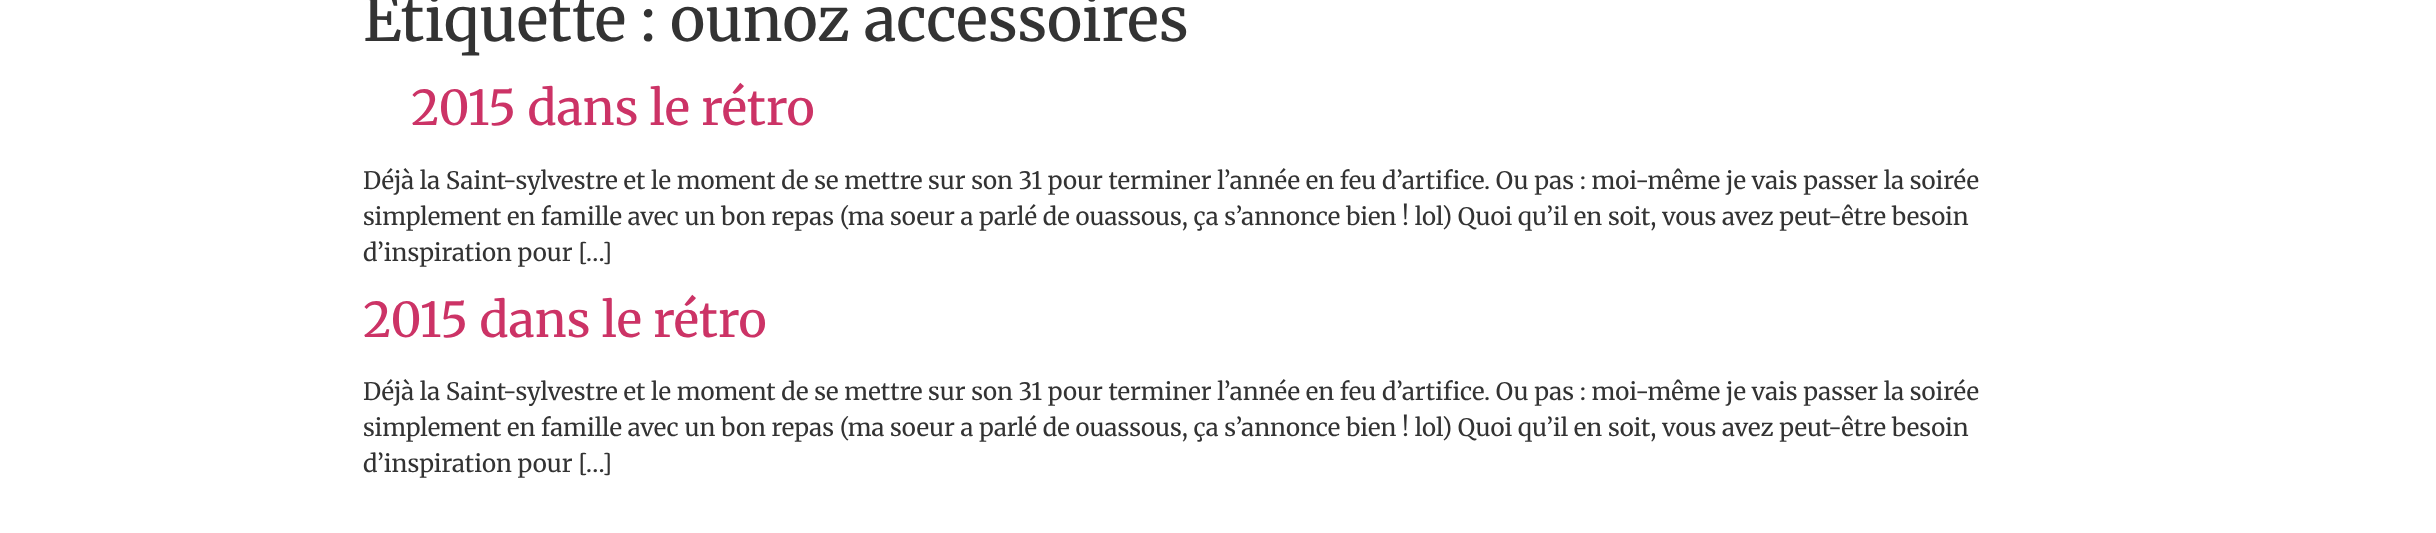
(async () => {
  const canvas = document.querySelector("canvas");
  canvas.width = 2436;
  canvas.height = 533;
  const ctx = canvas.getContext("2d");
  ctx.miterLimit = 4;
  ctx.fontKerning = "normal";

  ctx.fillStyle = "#ffffff";
  ctx.fillRect(0, 0, 2436, 533);
  ctx.font = "500 60px Merriweather";
  ctx.fillStyle = "#333333";
  ctx.fillText("Étiquette : ounoz accessoires", 363, 41);
  ctx.font = "48px Liberation Sans";
  ctx.fillStyle = "#cc3366";
  ctx.fillText("￼", 363, 125);
  ctx.font = "500 48px Merriweather";
  ctx.fillText("2015 dans le rétro", 411, 125);
  ctx.font = "24px Merriweather";
  ctx.fillStyle = "#333333";
  for (const [text, x, y] of [
    ["Déjà la Saint-sylvestre et le moment de se mettre sur son 31 pour terminer l’année en feu d’artifice. Ou pas : moi-même je vais passer la soirée", 363, 189],
    ["simplement en famille avec un bon repas (ma soeur a parlé de ouassous, ça s’annonce bien ! lol) Quoi qu’il en soit, vous avez peut-être besoin", 363, 225],
    ["d’inspiration pour […]", 363, 261],
  ]) {
    ctx.fillText(text, x, y);
  }
  ctx.font = "500 48px Merriweather";
  ctx.fillStyle = "#cc3366";
  ctx.fillText("2015 dans le rétro", 363, 337);
  ctx.font = "24px Merriweather";
  ctx.fillStyle = "#333333";
  for (const [text, x, y] of [
    ["Déjà la Saint-sylvestre et le moment de se mettre sur son 31 pour terminer l’année en feu d’artifice. Ou pas : moi-même je vais passer la soirée", 363, 400],
    ["simplement en famille avec un bon repas (ma soeur a parlé de ouassous, ça s’annonce bien ! lol) Quoi qu’il en soit, vous avez peut-être besoin", 363, 436],
    ["d’inspiration pour […]", 363, 472],
  ]) {
    ctx.fillText(text, x, y);
  }
})();
